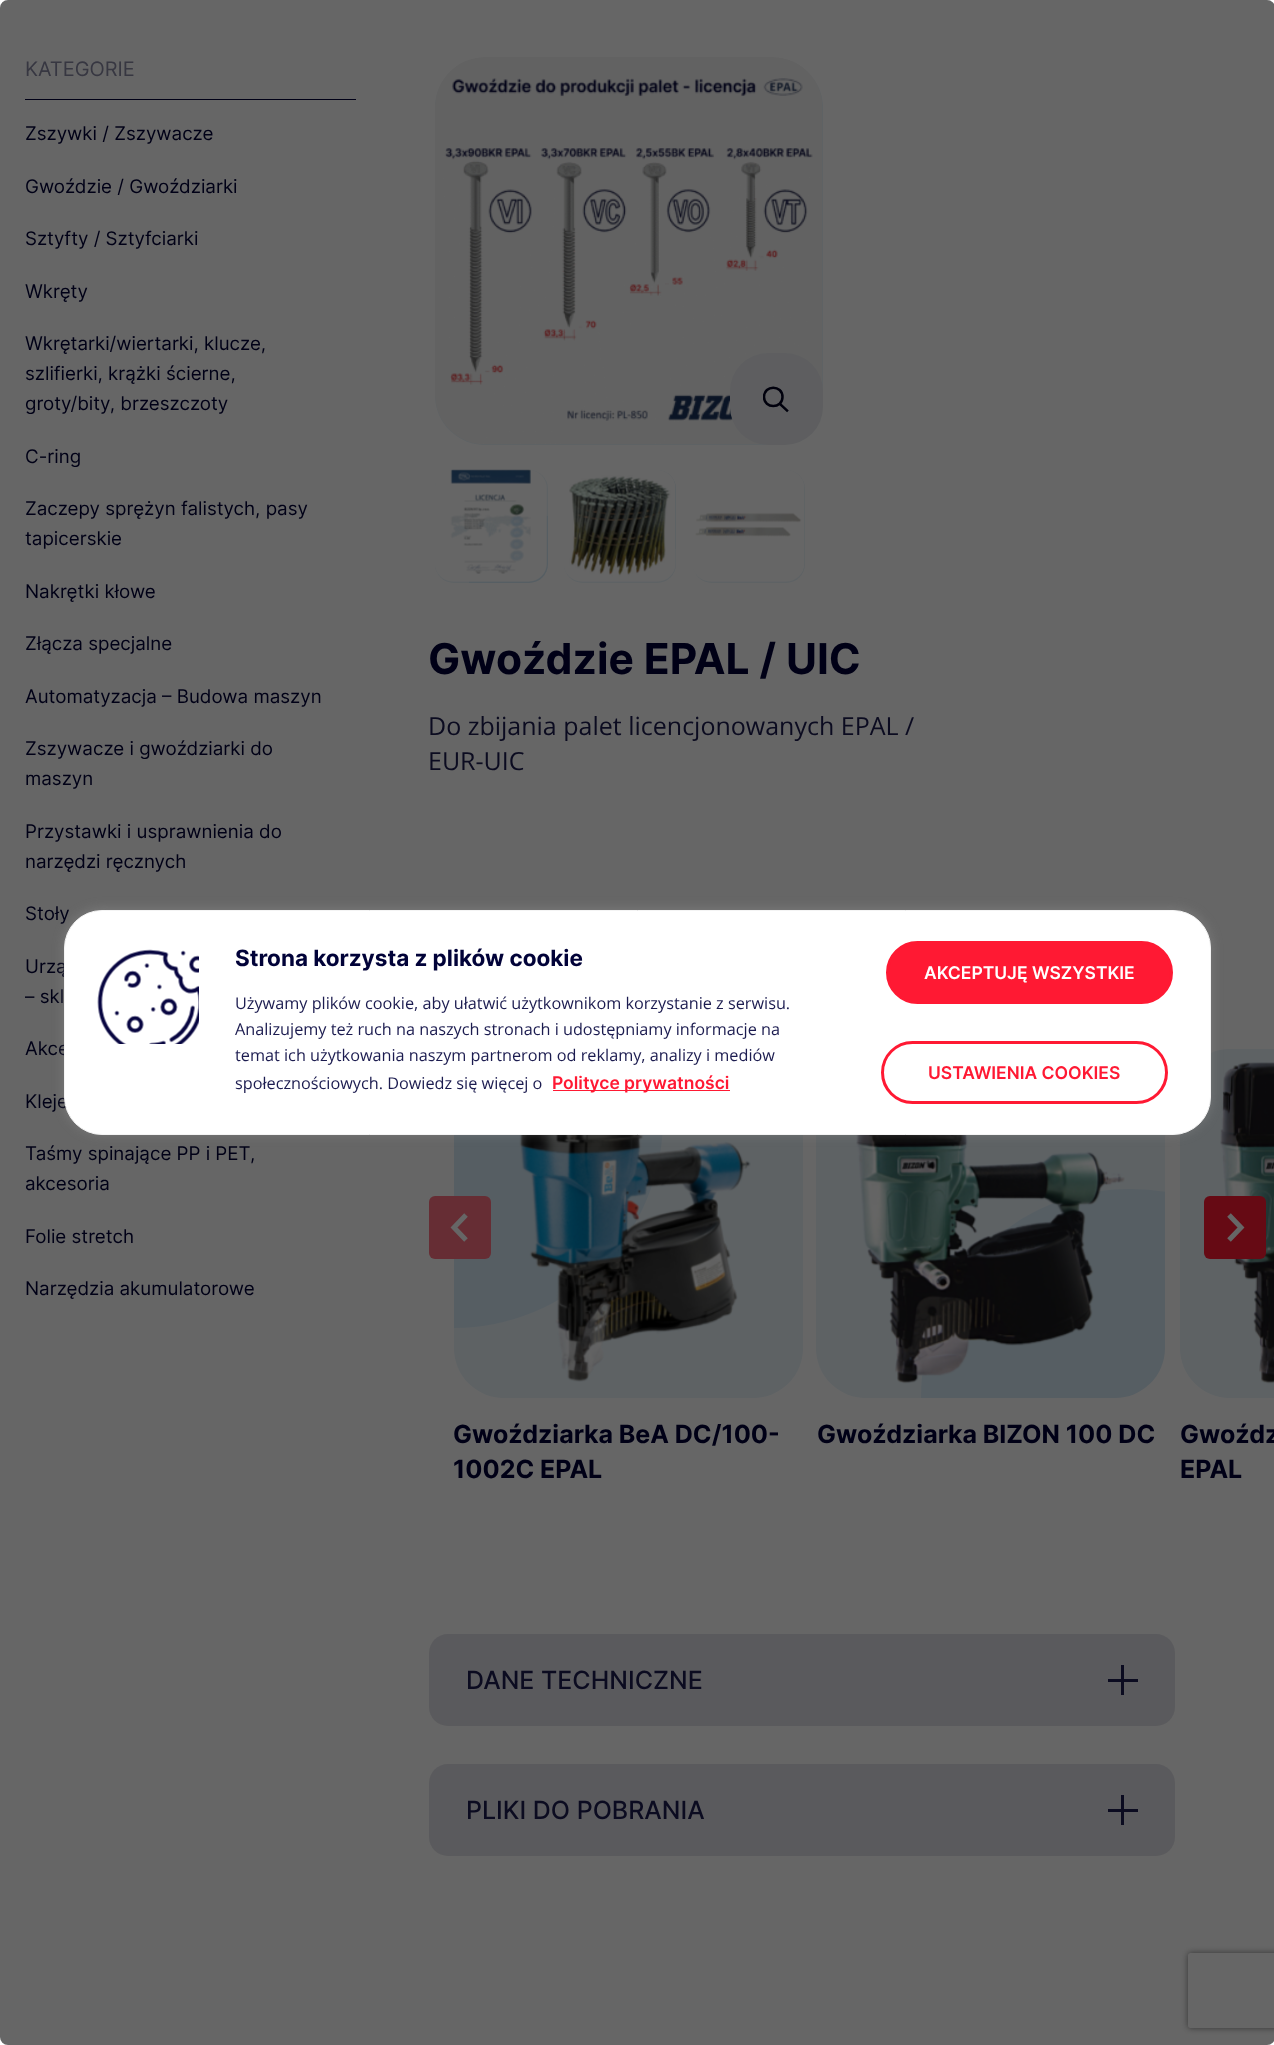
(async () => {
  const canvas = document.querySelector("canvas");
  canvas.width = 1274;
  canvas.height = 2045;
  const ctx = canvas.getContext("2d");
  ctx.miterLimit = 4;
  ctx.fontKerning = "normal";
  async function loadImage(src) {
    const img = new Image();
    img.src = src;
    await img.decode();
    return img;
  }
  let path;

  ctx.fillStyle = "#ffffff";
  ctx.fillRect(0, 0, 1274, 2045);
  ctx.fillStyle = "#010238";
  ctx.fillRect(25, 99, 331, 1);
  ctx.fillStyle = "#eaf5fb";
  ctx.beginPath();
  ctx.roundRect(435, 58, 388, 387, 50);
  ctx.fill();
  ctx.drawImage(await loadImage("img/1.png"), 435, 57, 387, 387);
  ctx.fillStyle = "#eaecf0";
  ctx.beginPath();
  ctx.roundRect(730, 353, 93, 92, 38);
  ctx.fill();
  path = new Path2D("M781 405L787 410.5");
  ctx.strokeStyle = "#01011f";
  ctx.lineWidth = 2.5;
  ctx.lineCap = "square";
  ctx.stroke(path);
  ctx.save();
  ctx.beginPath();
  ctx.rect(763, 386, 26, 27);
  ctx.clip();
  path = new Path2D("M764 397C764 409 782.5 409 782.5 397C782.5 384.5 764 384.5 764 397Z");
  ctx.lineCap = "butt";
  ctx.stroke(path);
  ctx.restore();
  ctx.fillStyle = "#eaf5fb";
  ctx.beginPath();
  ctx.roundRect(435, 470, 113, 113, 19);
  ctx.fill();
  ctx.save();
  ctx.beginPath();
  ctx.roundRect(435, 470, 113, 113, 19);
  ctx.clip();
  ctx.fillStyle = "rgba(0, 133, 202, 0.08)";
  ctx.beginPath();
  ctx.arc(536.5, 582.5, 67.5, 0, Math.PI * 2);
  ctx.fill();
  ctx.restore();
  ctx.drawImage(await loadImage("img/2.png"), 435, 469, 112, 113);
  ctx.beginPath();
  ctx.roundRect(564, 470, 112, 113, 19);
  ctx.fill();
  ctx.save();
  ctx.beginPath();
  ctx.roundRect(564, 470, 112, 113, 19);
  ctx.clip();
  ctx.fillStyle = "rgba(0, 133, 202, 0.08)";
  ctx.beginPath();
  ctx.arc(676.5, 481.5, 67.5, 0, Math.PI * 2);
  ctx.fill();
  ctx.restore();
  ctx.drawImage(await loadImage("img/3.png"), 564, 470, 112, 112);
  ctx.beginPath();
  ctx.roundRect(693, 470, 112, 113, 19);
  ctx.fill();
  ctx.drawImage(await loadImage("img/4.png"), 693, 470, 112, 112);
  ctx.beginPath();
  ctx.roundRect(454, 1049, 349, 349, 50);
  ctx.fill();
  ctx.save();
  ctx.beginPath();
  ctx.roundRect(454, 1049, 349, 349, 50);
  ctx.clip();
  ctx.fillStyle = "rgba(0, 133, 202, 0.08)";
  ctx.beginPath();
  ctx.arc(453.5, 1118.5, 209.5, 0, Math.PI * 2);
  ctx.fill();
  ctx.restore();
  ctx.fillStyle = "#ff7282";
  ctx.beginPath();
  ctx.roundRect(429, 1196, 62, 63, 6);
  ctx.fill();
  path = new Path2D("M466 1240L454 1227.5L466 1215");
  ctx.strokeStyle = "#ffffff";
  ctx.lineWidth = 5;
  ctx.lineCap = "butt";
  ctx.stroke(path);
  ctx.fillStyle = "#eaf5fb";
  ctx.beginPath();
  ctx.roundRect(816, 1049, 349, 349, 50);
  ctx.fill();
  ctx.save();
  ctx.beginPath();
  ctx.roundRect(816, 1049, 349, 349, 50);
  ctx.clip();
  ctx.fillStyle = "rgba(0, 133, 202, 0.08)";
  ctx.beginPath();
  ctx.roundRect(921, 1189, 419, 417, 208.5);
  ctx.fill();
  ctx.restore();
  path = new Path2D("M1230 1049H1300V1398H1230C1202.5 1398 1180 1375.5 1180 1348V1099C1180 1071.5 1202.5 1049 1230 1049Z");
  ctx.fill(path);
  ctx.drawImage(await loadImage("img/7.png"), 1220, 1062, 54, 322);
  ctx.fillStyle = "#ff1933";
  ctx.beginPath();
  ctx.roundRect(1204, 1196, 62, 63, 6);
  ctx.fill();
  path = new Path2D("M1229 1215L1241 1227.5L1229 1240");
  ctx.stroke(path);
  ctx.drawImage(await loadImage("img/5.png"), 519, 1135, 232, 247);
  ctx.drawImage(await loadImage("img/6.png"), 856, 1135, 269, 249);
  ctx.fillStyle = "#e2e2e8";
  ctx.beginPath();
  ctx.roundRect(429, 1634, 746, 92, 19);
  ctx.fill();
  ctx.fillStyle = "#1c1c50";
  ctx.fillRect(1121, 1665, 3, 30);
  ctx.fillRect(1108, 1679, 30, 3);
  ctx.fillStyle = "#e2e2e8";
  ctx.beginPath();
  ctx.roundRect(429, 1764, 746, 92, 19);
  ctx.fill();
  ctx.fillStyle = "#1c1c50";
  ctx.fillRect(1121, 1795, 3, 30);
  ctx.fillRect(1108, 1809, 30, 3);
  ctx.save();
  path = new Path2D("M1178 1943H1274V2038H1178ZM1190.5 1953H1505.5C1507 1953 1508 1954 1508 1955.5V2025.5C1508 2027 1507 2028 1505.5 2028H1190.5C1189 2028 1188 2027 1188 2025.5V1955.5C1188 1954 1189 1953 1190.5 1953Z");
  ctx.clip(path, "evenodd");
  ctx.fillStyle = "#808080";
  ctx.filter = "blur(3px)";
  ctx.beginPath();
  ctx.roundRect(1188, 1953, 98, 75, 2.5);
  ctx.fill();
  ctx.filter = "none";
  ctx.restore();
  ctx.font = "20px Inter";
  ctx.fillStyle = "#8989a4";
  ctx.fillText("KATEGORIE", 25, 76);
  ctx.font = "18.75px Inter";
  ctx.fillStyle = "#010238";
  for (const [text, x, y] of [
    ["Zszywki / Zszywacze", 25, 140],
    ["Gwoździe / Gwoździarki", 25, 193],
    ["Sztyfty / Sztyfciarki", 25, 245],
    ["Wkręty", 25, 298],
    ["Wkrętarki/wiertarki, klucze,", 25, 350],
    ["szlifierki, krążki ścierne,", 25, 380],
    ["groty/bity, brzeszczoty", 25, 410],
    ["C-ring", 25, 463],
    ["Zaczepy sprężyn falistych, pasy", 25, 515],
    ["tapicerskie", 25, 545],
    ["Nakrętki kłowe", 25, 598],
    ["Złącza specjalne", 25, 650],
    ["Automatyzacja – Budowa maszyn", 25, 703],
    ["Zszywacze i gwoździarki do", 25, 755],
    ["maszyn", 25, 785],
    ["Przystawki i usprawnienia do", 25, 838],
    ["narzędzi ręcznych", 25, 868],
    ["Stoły", 25, 920],
    ["Urzą", 25, 973],
    ["– skl", 25, 1003],
    ["Akce", 25, 1055],
    ["Kleje", 25, 1108],
    ["Taśmy spinające PP i PET,", 25, 1160],
    ["akcesoria", 25, 1190],
    ["Folie stretch", 25, 1243],
    ["Narzędzia akumulatorowe", 25, 1295],
  ]) {
    ctx.fillText(text, x, y);
  }
  ctx.font = "bold 42.5px Inter";
  ctx.fillText("Gwoździe EPAL / UIC", 428, 674);
  ctx.font = "25px Open Sans";
  ctx.fillStyle = "#1c1c50";
  ctx.fillText("Do zbijania palet licencjonowanych EPAL /", 428, 735);
  ctx.fillText("EUR-UIC", 428, 770);
  ctx.font = "bold 25px Inter";
  ctx.fillStyle = "#010238";
  for (const [text, x, y] of [
    ["Gwoździarka BeA DC/100-", 453, 1443],
    ["1002C EPAL", 453, 1478],
    ["Gwoździarka BIZON 100 DC", 817, 1443],
    ["Gwoźdz", 1180, 1443],
    ["EPAL", 1180, 1478],
  ]) {
    ctx.fillText(text, x, y);
  }
  ctx.font = "500 25px Inter";
  ctx.fillStyle = "#1c1c50";
  ctx.fillText("DANE TECHNICZNE", 466, 1689);
  ctx.fillText("PLIKI DO POBRANIA", 466, 1819);
  ctx.fillStyle = "rgba(0, 0, 0, 0.6)";
  ctx.beginPath();
  ctx.roundRect(0, 0, 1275, 2045, 8);
  ctx.fill();
  ctx.fillStyle = "rgba(172, 171, 171, 0.3)";
  ctx.filter = "blur(6px)";
  ctx.beginPath();
  ctx.roundRect(64, 909, 1147, 225, 38);
  ctx.fill();
  ctx.filter = "none";
  ctx.fillStyle = "#ffffff";
  ctx.beginPath();
  ctx.roundRect(64.5, 910.5, 1146, 224, 37.5);
  ctx.fill();
  ctx.strokeStyle = "#f4f4f4";
  ctx.lineWidth = 1;
  ctx.stroke();
  ctx.drawImage(await loadImage("img/8.png"), 97, 949, 102, 95);
  ctx.font = "bold 22.5px Inter";
  ctx.fillStyle = "#010238";
  ctx.fillText("Strona korzysta z plików cookie", 235, 966);
  ctx.font = "16.25px Open Sans";
  ctx.fillStyle = "#1c1c50";
  for (const [text, x, y] of [
    ["Używamy plików cookie, aby ułatwić użytkownikom korzystanie z serwisu.", 235, 1009],
    ["Analizujemy też ruch na naszych stronach i udostępniamy informacje na", 235, 1035],
    ["temat ich użytkowania naszym partnerom od reklamy, analizy i mediów", 235, 1061],
    ["społecznościowych. Dowiedz się więcej o", 235, 1089],
  ]) {
    ctx.fillText(text, x, y);
  }
  ctx.fillStyle = "#ff1933";
  ctx.fillRect(553, 1090, 177, 1);
  ctx.font = "600 17.5px Inter";
  ctx.fillText("Polityce prywatności", 552, 1089);
  ctx.beginPath();
  ctx.roundRect(887.5, 942.5, 284, 60, 30);
  ctx.fill();
  ctx.strokeStyle = "#ff1933";
  ctx.lineWidth = 3;
  ctx.stroke();
  ctx.fillStyle = "#ffffff";
  ctx.fillText("AKCEPTUJĘ WSZYSTKIE", 924, 979);
  ctx.beginPath();
  ctx.roundRect(882.5, 1042.5, 284, 60, 30);
  ctx.stroke();
  ctx.fillStyle = "#ff1933";
  ctx.fillText("USTAWIENIA COOKIES", 928, 1079);
})();
